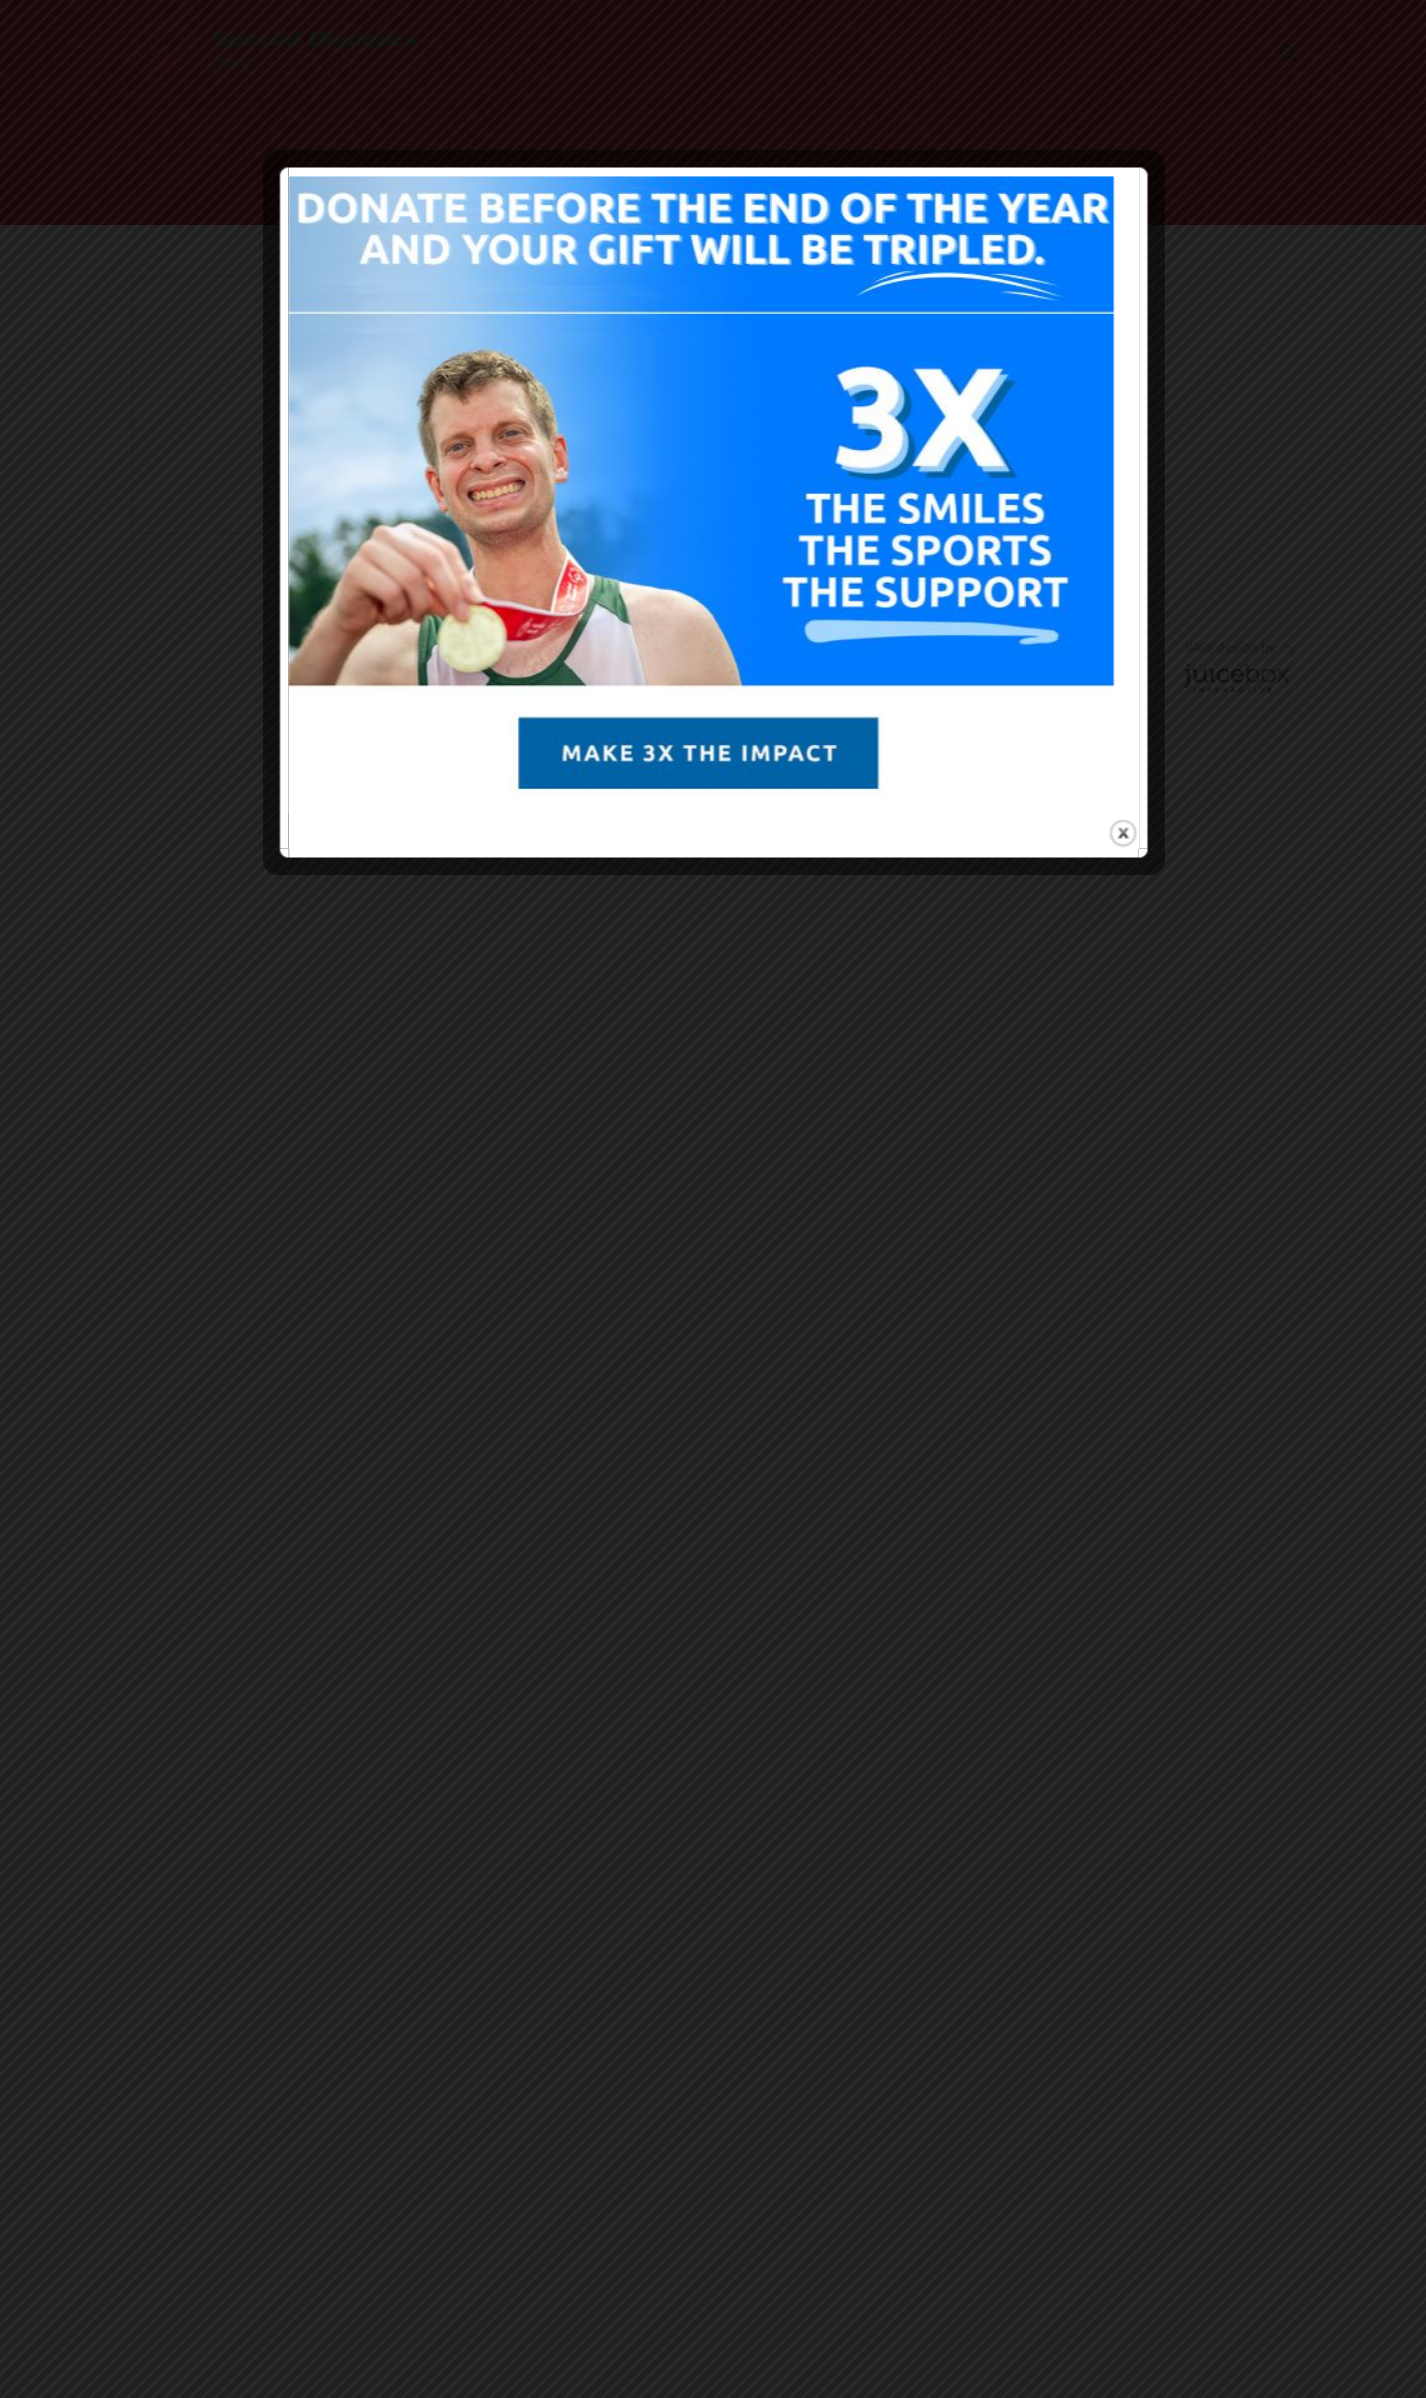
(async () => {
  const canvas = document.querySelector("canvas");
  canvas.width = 1426;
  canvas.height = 2398;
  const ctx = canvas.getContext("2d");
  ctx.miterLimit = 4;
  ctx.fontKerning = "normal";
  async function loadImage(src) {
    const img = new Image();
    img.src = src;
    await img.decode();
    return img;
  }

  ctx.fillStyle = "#ffffff";
  ctx.fillRect(0, 0, 1426, 2398);
  ctx.drawImage(await loadImage("img/1.png"), 0, 0, 1426, 225);
  ctx.strokeStyle = "#eceadb";
  ctx.lineWidth = 3;
  ctx.strokeRect(132.5, 276.5, 370, 257);
  ctx.save();
  ctx.beginPath();
  ctx.rect(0, 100, 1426, 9);
  ctx.clip();
  ctx.fillStyle = "rgba(0, 0, 0, 0.25)";
  ctx.filter = "blur(6px)";
  ctx.beginPath();
  ctx.rect(0, 1, 1426, 100);
  ctx.fill();
  ctx.filter = "none";
  ctx.restore();
  ctx.drawImage(await loadImage("img/2.png"), 131, 17, 288, 68);
  ctx.drawImage(await loadImage("img/3.png"), 1280, 45, 17, 17);
  ctx.drawImage(await loadImage("img/15.png"), 151, 652, 14, 25);
  ctx.drawImage(await loadImage("img/16.png"), 198, 654, 24, 23);
  ctx.drawImage(await loadImage("img/17.png"), 250, 655, 27, 20);
  ctx.drawImage(await loadImage("img/18.png"), 1183, 641, 113, 52);
  ctx.drawImage(await loadImage("img/4.png"), 0, 0, 1426, 2398);
  ctx.drawImage(await loadImage("img/5.png"), 263, 150, 27, 27);
  ctx.drawImage(await loadImage("img/6.png"), 289, 150, 850, 26);
  ctx.drawImage(await loadImage("img/7.png"), 1138, 150, 27, 27);
  ctx.drawImage(await loadImage("img/8.png"), 263, 176, 26, 673);
  ctx.drawImage(await loadImage("img/12.png"), 263, 848, 27, 27);
  ctx.drawImage(await loadImage("img/11.png"), 1139, 176, 26, 673);
  ctx.drawImage(await loadImage("img/13.png"), 288, 848, 852, 27);
  ctx.drawImage(await loadImage("img/14.png"), 1138, 848, 27, 27);
  ctx.fillRect(289, 176, 850, 673);
  ctx.drawImage(await loadImage("img/9.png"), 288, 176, 827, 638);
  ctx.drawImage(await loadImage("img/10.png"), 1109, 820, 28, 28);
})();
